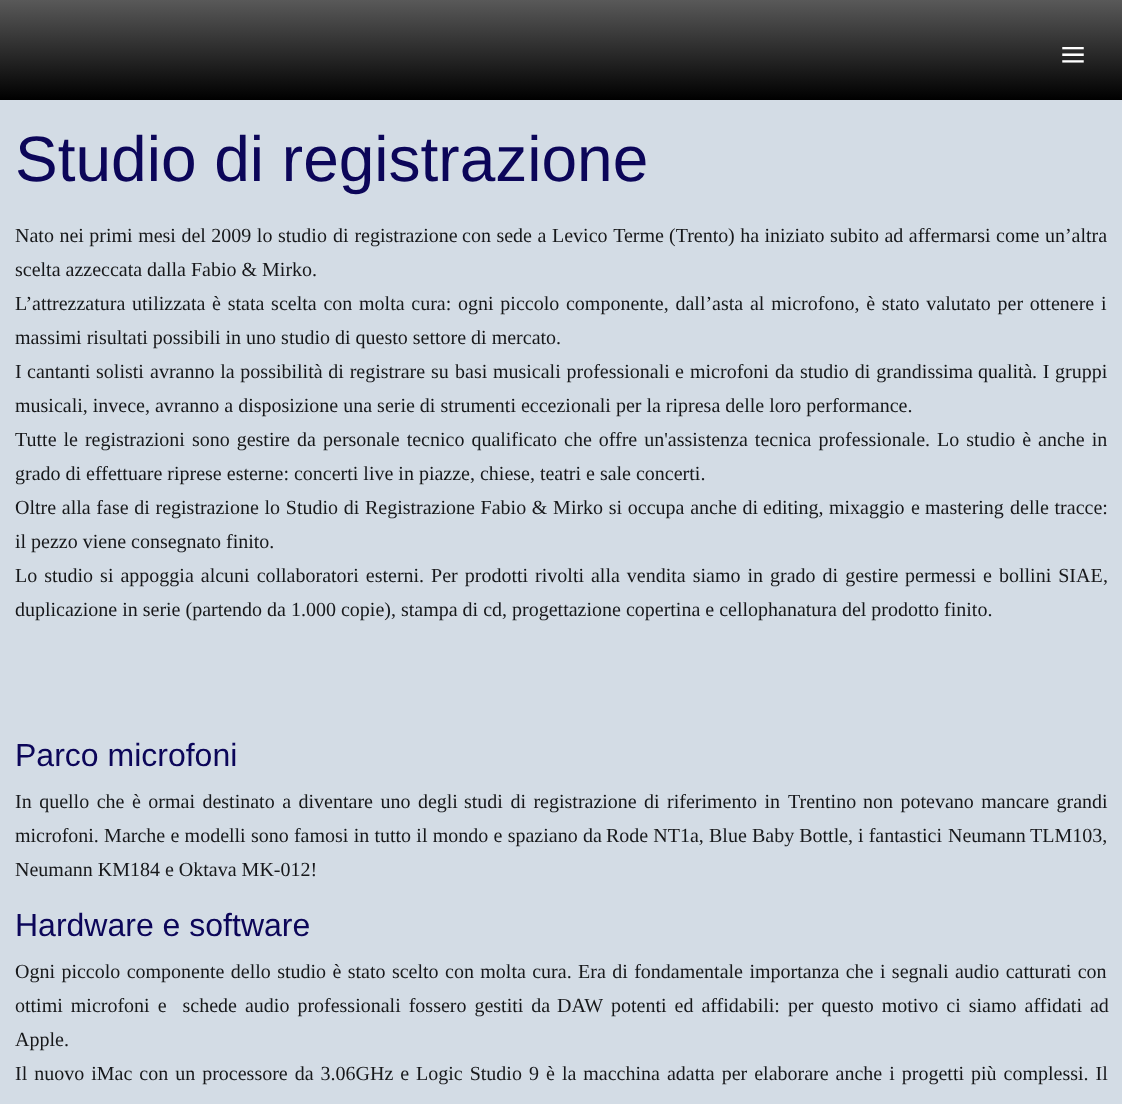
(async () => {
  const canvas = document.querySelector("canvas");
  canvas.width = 1122;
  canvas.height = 1104;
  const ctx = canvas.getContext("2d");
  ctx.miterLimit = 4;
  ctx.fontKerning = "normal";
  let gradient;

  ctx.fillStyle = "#d3dce5";
  ctx.fillRect(0, 0, 1122, 1104);
  gradient = ctx.createLinearGradient(561, 0, 561, 100);
  gradient.addColorStop(0, "#595959");
  gradient.addColorStop(1, "#000000");
  ctx.fillStyle = gradient;
  ctx.fillRect(0, 0, 1122, 100);
  ctx.font = "46px Liberation Serif";
  ctx.fillStyle = "#ffffff";
  ctx.fillText("≡", 1060, 70);
  ctx.font = "64px Liberation Sans";
  ctx.fillStyle = "#0c0659";
  ctx.fillText("Studio di registrazione", 15, 181);
  ctx.wordSpacing = "0.5px";
  ctx.font = "20px Liberation Serif";
  ctx.fillStyle = "#17181a";
  ctx.fillText("Nato nei primi mesi del 2009 lo", 15, 242);
  ctx.wordSpacing = "1px";
  ctx.fillText("studio di registrazione", 278, 242);
  ctx.wordSpacing = "0.5px";
  ctx.fillText("con sede a", 462, 242);
  ctx.wordSpacing = "1px";
  ctx.fillText("Levico Terme", 552, 242);
  ctx.wordSpacing = "0px";
  ctx.fillText("(Trento", 669, 242);
  ctx.wordSpacing = "0.5px";
  ctx.fillText(") ha iniziato subito ad affermarsi come un’altra", 728, 242);
  ctx.wordSpacing = "0px";
  ctx.fillText("scelta azzeccata dalla Fabio & Mirko.", 15, 276);
  ctx.wordSpacing = "1.75px";
  ctx.fillText("L’attrezzatura utilizzata è stata scelta con molta cura: ogni piccolo componente, dall’asta al microfono, è stato valutato per ottenere i", 15, 310);
  ctx.wordSpacing = "0px";
  ctx.fillText("massimi risultati possibili in uno studio di questo settore di mercato.", 15, 344);
  ctx.fillText("I", 15, 378);
  ctx.wordSpacing = "0.75px";
  for (const [text, x, y] of [
    ["cantanti solisti", 27, 378],
    ["avranno la possibilità di registrare su", 150, 378],
    ["basi musicali professionali", 455, 378],
  ]) {
    ctx.fillText(text, x, y);
  }
  ctx.wordSpacing = "0px";
  ctx.fillText("e", 675, 378);
  ctx.fillText("microfoni", 690, 378);
  ctx.wordSpacing = "1px";
  ctx.fillText("da studio di grandissima", 775, 378);
  ctx.wordSpacing = "0px";
  ctx.fillText("qualità", 978, 378);
  ctx.wordSpacing = "0.75px";
  ctx.fillText(". I", 1032, 378);
  ctx.wordSpacing = "0px";
  ctx.fillText("gruppi", 1055, 378);
  ctx.fillText("musicali, invece, avranno a disposizione una serie di strumenti eccezionali per la ripresa delle loro performance.", 15, 412);
  ctx.wordSpacing = "2px";
  for (const [text, x, y] of [
    ["Tutte le registrazioni sono gestire da", 15, 446],
    ["personale tecnico qualificato", 323, 446],
    ["che offre un'assistenza tecnica professionale. Lo studio è anche in", 564, 446],
  ]) {
    ctx.fillText(text, x, y);
  }
  ctx.wordSpacing = "0px";
  ctx.fillText("grado di effettuare riprese esterne: concerti live in piazze, chiese, teatri e sale concerti.", 15, 480);
  ctx.wordSpacing = "0.7px";
  ctx.fillText("Oltre alla fase di registrazione lo Studio di Registrazione Fabio & Mirko si occupa anche di", 15, 514);
  ctx.wordSpacing = "0px";
  for (const [text, x, y] of [
    ["editing,", 763, 514],
    ["mixaggio", 829, 514],
    ["e", 911, 514],
    ["mastering", 925, 514],
  ]) {
    ctx.fillText(text, x, y);
  }
  ctx.wordSpacing = "0.7px";
  ctx.fillText("delle tracce:", 1010, 514);
  ctx.wordSpacing = "0px";
  ctx.fillText("il pezzo viene consegnato finito.", 15, 548);
  ctx.wordSpacing = "2px";
  ctx.fillText("Lo studio si appoggia alcuni collaboratori esterni. Per prodotti rivolti alla vendita siamo in grado di gestire", 15, 582);
  ctx.wordSpacing = "0px";
  ctx.fillText("permessi", 905, 582);
  ctx.fillText("e", 983, 582);
  ctx.wordSpacing = "2px";
  ctx.fillText("bollini SIAE", 999, 582);
  ctx.wordSpacing = "0px";
  ctx.fillText(",", 1103, 582);
  ctx.fillText("duplicazione in serie (partendo da 1.000 copie), stampa di cd, progettazione copertina e cellophanatura del prodotto finito.", 15, 616);
  ctx.font = "32px Liberation Sans";
  ctx.fillStyle = "#0c0659";
  ctx.fillText("Parco microfoni", 15, 766);
  ctx.wordSpacing = "2.5px";
  ctx.font = "20px Liberation Serif";
  ctx.fillStyle = "#17181a";
  for (const [text, x, y] of [
    ["In quello che è ormai destinato a diventare uno degli", 15, 808],
    ["studi di registrazione", 464, 808],
    ["di riferimento in", 644, 808],
  ]) {
    ctx.fillText(text, x, y);
  }
  ctx.wordSpacing = "0px";
  ctx.fillText("Trentino", 788, 808);
  ctx.wordSpacing = "2.5px";
  ctx.fillText("non potevano mancare grandi", 863, 808);
  ctx.wordSpacing = "0.25px";
  ctx.fillText("microfoni. Marche e modelli sono famosi in tutto il mondo e spaziano da", 15, 842);
  ctx.wordSpacing = "0px";
  for (const [text, x, y] of [
    ["Rode NT1a,", 606, 842],
    ["Blue", 709, 842],
    ["Baby Bottle, i fantastici", 752, 842],
    ["Neumann", 948, 842],
    ["TLM103,", 1030, 842],
    ["Neumann KM184 e Oktava MK-012!", 15, 876],
  ]) {
    ctx.fillText(text, x, y);
  }
  ctx.font = "32px Liberation Sans";
  ctx.fillStyle = "#0c0659";
  ctx.fillText("Hardware e software", 15, 936);
  ctx.wordSpacing = "1.4px";
  ctx.font = "20px Liberation Serif";
  ctx.fillStyle = "#17181a";
  ctx.fillText("Ogni piccolo componente dello studio è stato scelto con molta cura. Era di fondamentale importanza che i segnali audio catturati con", 15, 978);
  ctx.wordSpacing = "3px";
  ctx.fillText("ottimi microfoni e  schede audio professionali fossero gestiti da", 15, 1012);
  ctx.wordSpacing = "0px";
  ctx.fillText("DAW", 557, 1012);
  ctx.wordSpacing = "3px";
  ctx.fillText("potenti ed affidabili: per questo motivo ci siamo affidati ad", 611, 1012);
  ctx.wordSpacing = "0px";
  ctx.fillText("Apple.", 15, 1046);
  ctx.wordSpacing = "2px";
  for (const [text, x, y] of [
    ["Il nuovo iMac con un processore da 3.06GHz e", 15, 1080],
    ["Logic Studio", 416, 1080],
    ["9 è la macchina adatta per elaborare anche i progetti più complessi. Il", 529, 1080],
  ]) {
    ctx.fillText(text, x, y);
  }
})();
